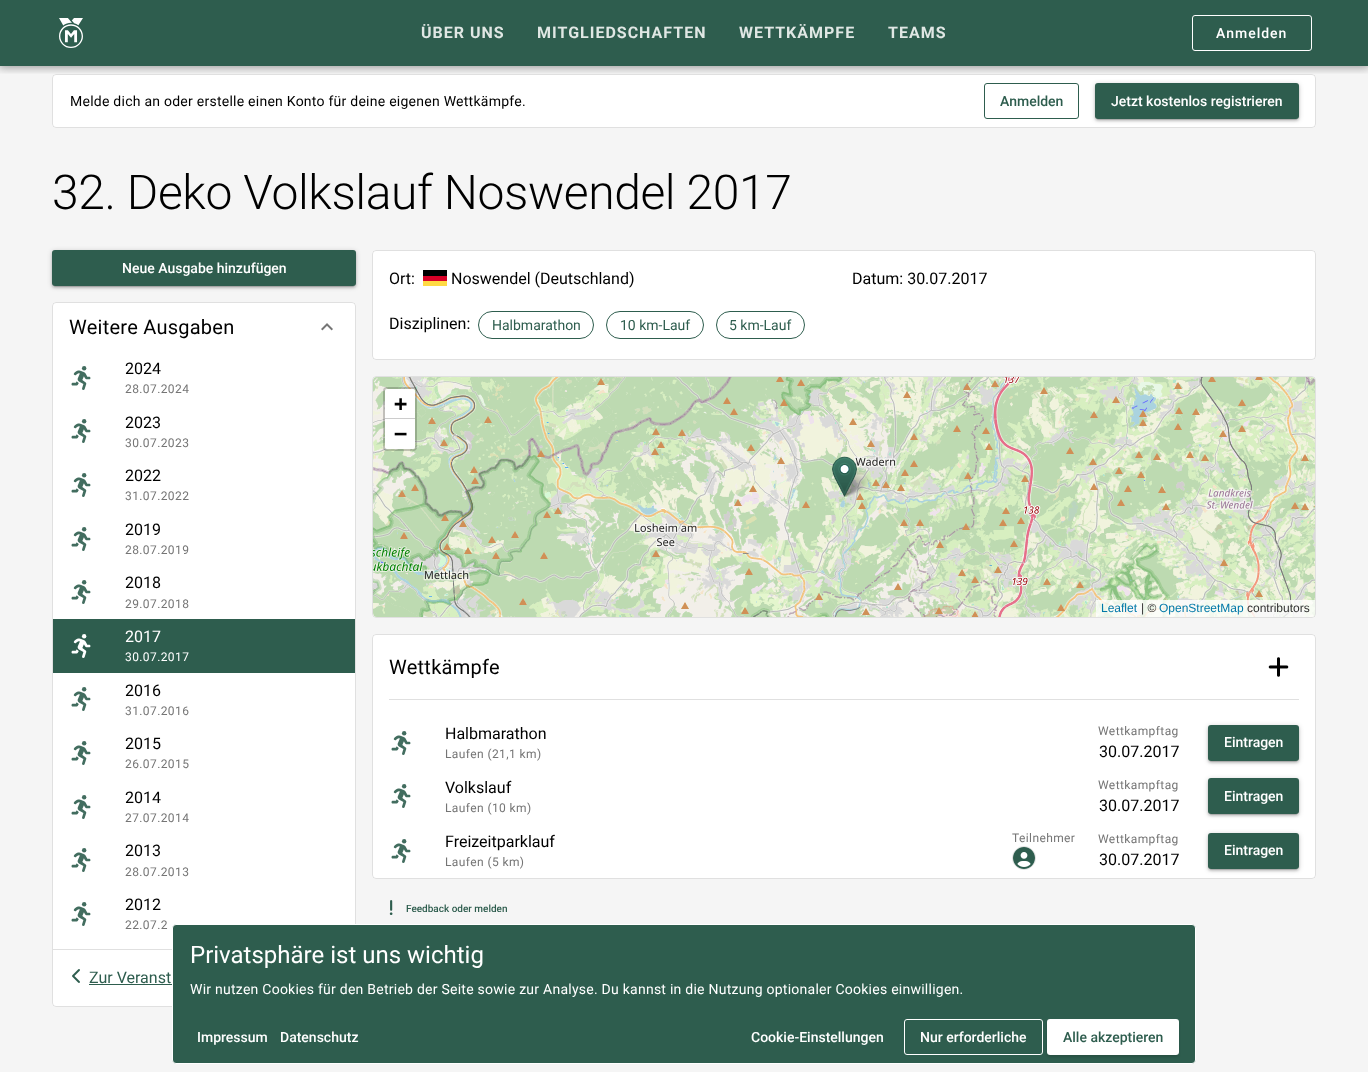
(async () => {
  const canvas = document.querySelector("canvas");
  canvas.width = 1368;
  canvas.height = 1072;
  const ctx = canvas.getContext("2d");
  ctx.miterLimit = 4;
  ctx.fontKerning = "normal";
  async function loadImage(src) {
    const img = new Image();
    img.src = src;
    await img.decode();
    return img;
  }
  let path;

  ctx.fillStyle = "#f5f5f5";
  ctx.fillRect(0, 0, 1368, 1072);
  ctx.fillStyle = "#2e5d4e";
  ctx.fillRect(0, 0, 1368, 66);
  ctx.drawImage(await loadImage("img/1.png"), 59, 18, 24, 30);
  ctx.beginPath();
  ctx.roundRect(1192.5, 15.5, 119, 35, 2.5);
  ctx.strokeStyle = "#ffffff";
  ctx.stroke();
  ctx.fillStyle = "#ffffff";
  ctx.beginPath();
  ctx.roundRect(52, 74, 1264, 54, 4);
  ctx.fill();
  ctx.beginPath();
  ctx.roundRect(52.5, 74.5, 1263, 53, 3.5);
  ctx.strokeStyle = "rgba(0, 0, 0, 0.12)";
  ctx.stroke();
  ctx.save();
  ctx.beginPath();
  ctx.rect(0, 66, 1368, 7);
  ctx.clip();
  ctx.fillStyle = "rgba(0, 0, 0, 0.24)";
  ctx.filter = "blur(5px)";
  ctx.beginPath();
  ctx.rect(0, 0, 1368, 66);
  ctx.fill();
  ctx.filter = "none";
  ctx.restore();
  ctx.beginPath();
  ctx.roundRect(984.5, 83.5, 94, 35, 2.5);
  ctx.strokeStyle = "#2e5d4e";
  ctx.stroke();
  ctx.fillStyle = "#2e5d4e";
  ctx.beginPath();
  ctx.roundRect(1095, 83, 204, 36, 3);
  ctx.fill();
  ctx.save();
  ctx.beginPath();
  ctx.rect(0, 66, 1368, 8);
  ctx.clip();
  ctx.fillStyle = "rgba(0, 0, 0, 0.2)";
  ctx.filter = "blur(5px)";
  ctx.beginPath();
  ctx.rect(-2, -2, 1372, 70);
  ctx.fill();
  ctx.filter = "none";
  ctx.restore();
  ctx.save();
  ctx.beginPath();
  ctx.rect(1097, 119, 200, 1);
  ctx.clip();
  ctx.fillStyle = "rgba(0, 0, 0, 0.12)";
  ctx.filter = "blur(0.5px)";
  ctx.beginPath();
  ctx.roundRect(1097, 88, 200, 32, 1);
  ctx.fill();
  ctx.filter = "none";
  ctx.restore();
  ctx.save();
  path = new Path2D("M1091 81H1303V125H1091ZM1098 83H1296C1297.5 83 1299 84.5 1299 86V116C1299 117.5 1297.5 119 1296 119H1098C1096.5 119 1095 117.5 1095 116V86C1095 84.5 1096.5 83 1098 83Z");
  ctx.clip(path, "evenodd");
  ctx.fillStyle = "rgba(0, 0, 0, 0.14)";
  ctx.filter = "blur(1px)";
  ctx.beginPath();
  ctx.roundRect(1095, 85, 204, 36, 3);
  ctx.fill();
  ctx.filter = "none";
  ctx.restore();
  ctx.save();
  path = new Path2D("M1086 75H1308V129H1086ZM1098 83H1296C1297.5 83 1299 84.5 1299 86V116C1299 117.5 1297.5 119 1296 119H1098C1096.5 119 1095 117.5 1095 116V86C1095 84.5 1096.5 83 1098 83Z");
  ctx.clip(path, "evenodd");
  ctx.fillStyle = "rgba(0, 0, 0, 0.2)";
  ctx.filter = "blur(2.5px)";
  ctx.beginPath();
  ctx.roundRect(1095, 84, 204, 36, 3);
  ctx.fill();
  ctx.filter = "none";
  ctx.restore();
  ctx.beginPath();
  ctx.roundRect(52, 250, 304, 36, 3);
  ctx.fill();
  ctx.save();
  ctx.beginPath();
  ctx.rect(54, 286, 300, 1);
  ctx.clip();
  ctx.fillStyle = "rgba(0, 0, 0, 0.12)";
  ctx.filter = "blur(0.5px)";
  ctx.beginPath();
  ctx.roundRect(54, 255, 300, 32, 1);
  ctx.fill();
  ctx.filter = "none";
  ctx.restore();
  ctx.save();
  path = new Path2D("M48 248H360V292H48ZM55 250H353C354.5 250 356 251.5 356 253V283C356 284.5 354.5 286 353 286H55C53.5 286 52 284.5 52 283V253C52 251.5 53.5 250 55 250Z");
  ctx.clip(path, "evenodd");
  ctx.fillStyle = "rgba(0, 0, 0, 0.14)";
  ctx.filter = "blur(1px)";
  ctx.beginPath();
  ctx.roundRect(52, 252, 304, 36, 3);
  ctx.fill();
  ctx.filter = "none";
  ctx.restore();
  ctx.save();
  path = new Path2D("M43 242H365V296H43ZM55 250H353C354.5 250 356 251.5 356 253V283C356 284.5 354.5 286 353 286H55C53.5 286 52 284.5 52 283V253C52 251.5 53.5 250 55 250Z");
  ctx.clip(path, "evenodd");
  ctx.fillStyle = "rgba(0, 0, 0, 0.2)";
  ctx.filter = "blur(2.5px)";
  ctx.beginPath();
  ctx.roundRect(52, 251, 304, 36, 3);
  ctx.fill();
  ctx.filter = "none";
  ctx.restore();
  ctx.fillStyle = "#ffffff";
  ctx.beginPath();
  ctx.roundRect(52, 302, 304, 705, 4);
  ctx.fill();
  ctx.beginPath();
  ctx.roundRect(52.5, 302.5, 303, 704, 3.5);
  ctx.strokeStyle = "rgba(0, 0, 0, 0.12)";
  ctx.stroke();
  ctx.drawImage(await loadImage("img/2.png"), 321, 323, 12, 8);
  ctx.drawImage(await loadImage("img/3.png"), 71, 366, 20, 24);
  ctx.drawImage(await loadImage("img/3.png"), 71, 419, 20, 24);
  ctx.drawImage(await loadImage("img/3.png"), 71, 473, 20, 24);
  ctx.drawImage(await loadImage("img/3.png"), 71, 527, 20, 24);
  ctx.drawImage(await loadImage("img/3.png"), 71, 580, 20, 24);
  ctx.fillStyle = "#2e5d4e";
  ctx.fillRect(53, 619, 302, 54);
  ctx.drawImage(await loadImage("img/4.png"), 71, 634, 20, 24);
  ctx.drawImage(await loadImage("img/3.png"), 71, 687, 20, 24);
  ctx.drawImage(await loadImage("img/5.png"), 71, 741, 20, 24);
  ctx.drawImage(await loadImage("img/3.png"), 71, 795, 20, 24);
  ctx.drawImage(await loadImage("img/3.png"), 71, 848, 20, 24);
  ctx.drawImage(await loadImage("img/3.png"), 71, 902, 20, 24);
  ctx.fillStyle = "#e0e0e0";
  ctx.fillRect(53, 949, 119, 1);
  ctx.drawImage(await loadImage("img/6.png"), 72, 969, 8, 14);
  ctx.fillStyle = "#2e5d4e";
  ctx.fillRect(89, 984, 83, 1);
  ctx.fillStyle = "#ffffff";
  ctx.beginPath();
  ctx.roundRect(372, 250, 944, 110, 4);
  ctx.fill();
  ctx.beginPath();
  ctx.roundRect(372.5, 250.5, 943, 109, 3.5);
  ctx.stroke();
  for (const [x, y, w, h, color] of [
    [423, 270, 24, 6, "#000000"],
    [423, 276, 24, 5, "#d80027"],
    [423, 281, 24, 5, "#ffda44"],
  ]) {
    ctx.fillStyle = color;
    ctx.fillRect(x, y, w, h);
  }
  ctx.beginPath();
  ctx.roundRect(478.5, 311.5, 115, 27, 13.5);
  ctx.strokeStyle = "#2e5d4e";
  ctx.stroke();
  ctx.beginPath();
  ctx.roundRect(606.5, 311.5, 97, 27, 13.5);
  ctx.stroke();
  ctx.beginPath();
  ctx.roundRect(716.5, 311.5, 88, 27, 13.5);
  ctx.stroke();
  ctx.fillStyle = "#ffffff";
  ctx.beginPath();
  ctx.roundRect(372, 376, 944, 242, 4);
  ctx.fill();
  ctx.beginPath();
  ctx.roundRect(372.5, 376.5, 943, 241, 3.5);
  ctx.strokeStyle = "rgba(0, 0, 0, 0.12)";
  ctx.stroke();
  ctx.drawImage(await loadImage("img/7.png"), 373, 377, 198, 184);
  ctx.drawImage(await loadImage("img/8.png"), 571, 377, 256, 184);
  ctx.drawImage(await loadImage("img/9.png"), 827, 377, 256, 184);
  ctx.drawImage(await loadImage("img/10.png"), 1083, 377, 232, 184);
  ctx.drawImage(await loadImage("img/11.png"), 373, 561, 198, 56);
  ctx.drawImage(await loadImage("img/12.png"), 571, 561, 256, 56);
  ctx.drawImage(await loadImage("img/13.png"), 827, 561, 256, 56);
  ctx.drawImage(await loadImage("img/14.png"), 1083, 561, 232, 56);
  ctx.drawImage(await loadImage("img/16.png"), 842, 469, 29, 28);
  ctx.drawImage(await loadImage("img/15.png"), 832, 456, 25, 41);
  ctx.beginPath();
  ctx.roundRect(384, 388, 32, 62, 3);
  ctx.strokeStyle = "rgba(0, 0, 0, 0.2)";
  ctx.lineWidth = 2;
  ctx.stroke();
  ctx.beginPath();
  ctx.roundRect(385, 389, 30, 30, [2, 2, 0, 0]);
  ctx.fill();
  ctx.fillStyle = "#cccccc";
  ctx.fillRect(385, 418, 30, 1);
  ctx.fillStyle = "#ffffff";
  ctx.beginPath();
  ctx.roundRect(385, 419, 30, 30, [0, 0, 2, 2]);
  ctx.fill();
  ctx.fillStyle = "rgba(255, 255, 255, 0.8)";
  ctx.beginPath();
  ctx.roundRect(1096, 600, 219, 17, [0, 0, 4, 0]);
  ctx.fill();
  ctx.fillStyle = "#ffffff";
  ctx.beginPath();
  ctx.roundRect(372, 634, 944, 245, 4);
  ctx.fill();
  ctx.beginPath();
  ctx.roundRect(372.5, 634.5, 943, 244, 3.5);
  ctx.strokeStyle = "rgba(0, 0, 0, 0.12)";
  ctx.lineWidth = 1;
  ctx.stroke();
  ctx.drawImage(await loadImage("img/17.png"), 1268, 657, 21, 20);
  ctx.fillStyle = "#e0e0e0";
  ctx.fillRect(389, 699, 910, 1);
  ctx.drawImage(await loadImage("img/3.png"), 391, 731, 20, 24);
  ctx.fillStyle = "#2e5d4e";
  ctx.beginPath();
  ctx.roundRect(1208, 725, 91, 36, 3);
  ctx.fill();
  ctx.save();
  ctx.beginPath();
  ctx.rect(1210, 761, 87, 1);
  ctx.clip();
  ctx.fillStyle = "rgba(0, 0, 0, 0.12)";
  ctx.filter = "blur(0.5px)";
  ctx.beginPath();
  ctx.roundRect(1210, 730, 87, 32, 1);
  ctx.fill();
  ctx.filter = "none";
  ctx.restore();
  ctx.save();
  path = new Path2D("M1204 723H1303V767H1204ZM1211 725H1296C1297.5 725 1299 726.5 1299 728V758C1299 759.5 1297.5 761 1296 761H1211C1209.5 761 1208 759.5 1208 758V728C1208 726.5 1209.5 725 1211 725Z");
  ctx.clip(path, "evenodd");
  ctx.fillStyle = "rgba(0, 0, 0, 0.14)";
  ctx.filter = "blur(1px)";
  ctx.beginPath();
  ctx.roundRect(1208, 727, 91, 36, 3);
  ctx.fill();
  ctx.filter = "none";
  ctx.restore();
  ctx.save();
  path = new Path2D("M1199 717H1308V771H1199ZM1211 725H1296C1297.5 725 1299 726.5 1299 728V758C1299 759.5 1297.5 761 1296 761H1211C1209.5 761 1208 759.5 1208 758V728C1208 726.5 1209.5 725 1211 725Z");
  ctx.clip(path, "evenodd");
  ctx.fillStyle = "rgba(0, 0, 0, 0.2)";
  ctx.filter = "blur(2.5px)";
  ctx.beginPath();
  ctx.roundRect(1208, 726, 91, 36, 3);
  ctx.fill();
  ctx.filter = "none";
  ctx.restore();
  ctx.drawImage(await loadImage("img/3.png"), 391, 784, 20, 24);
  ctx.beginPath();
  ctx.roundRect(1208, 778, 91, 36, 3);
  ctx.fill();
  ctx.save();
  ctx.beginPath();
  ctx.rect(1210, 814, 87, 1);
  ctx.clip();
  ctx.fillStyle = "rgba(0, 0, 0, 0.12)";
  ctx.filter = "blur(0.5px)";
  ctx.beginPath();
  ctx.roundRect(1210, 783, 87, 32, 1);
  ctx.fill();
  ctx.filter = "none";
  ctx.restore();
  ctx.save();
  path = new Path2D("M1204 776H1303V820H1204ZM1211 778H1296C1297.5 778 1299 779.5 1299 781V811C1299 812.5 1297.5 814 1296 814H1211C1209.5 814 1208 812.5 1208 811V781C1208 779.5 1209.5 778 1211 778Z");
  ctx.clip(path, "evenodd");
  ctx.fillStyle = "rgba(0, 0, 0, 0.14)";
  ctx.filter = "blur(1px)";
  ctx.beginPath();
  ctx.roundRect(1208, 780, 91, 36, 3);
  ctx.fill();
  ctx.filter = "none";
  ctx.restore();
  ctx.save();
  path = new Path2D("M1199 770H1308V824H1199ZM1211 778H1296C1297.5 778 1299 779.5 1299 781V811C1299 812.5 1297.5 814 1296 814H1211C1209.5 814 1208 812.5 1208 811V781C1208 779.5 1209.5 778 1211 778Z");
  ctx.clip(path, "evenodd");
  ctx.fillStyle = "rgba(0, 0, 0, 0.2)";
  ctx.filter = "blur(2.5px)";
  ctx.beginPath();
  ctx.roundRect(1208, 779, 91, 36, 3);
  ctx.fill();
  ctx.filter = "none";
  ctx.restore();
  ctx.drawImage(await loadImage("img/3.png"), 391, 839, 20, 24);
  ctx.beginPath();
  ctx.arc(1024, 858, 11.5, 0, Math.PI * 2);
  ctx.strokeStyle = "#e0e0e0";
  ctx.stroke();
  ctx.save();
  ctx.beginPath();
  ctx.roundRect(1013, 847, 22, 22, 11);
  ctx.clip();
  ctx.fillStyle = "#ffffff";
  ctx.beginPath();
  ctx.arc(1024, 858, 12, 0, Math.PI * 2);
  ctx.fill();
  ctx.restore();
  ctx.drawImage(await loadImage("img/18.png"), 1013, 847, 22, 22);
  ctx.beginPath();
  ctx.roundRect(1208, 833, 91, 36, 3);
  ctx.fill();
  ctx.save();
  ctx.beginPath();
  ctx.rect(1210, 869, 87, 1);
  ctx.clip();
  ctx.fillStyle = "rgba(0, 0, 0, 0.12)";
  ctx.filter = "blur(0.5px)";
  ctx.beginPath();
  ctx.roundRect(1210, 838, 87, 32, 1);
  ctx.fill();
  ctx.filter = "none";
  ctx.restore();
  ctx.save();
  path = new Path2D("M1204 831H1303V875H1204ZM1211 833H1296C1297.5 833 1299 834.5 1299 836V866C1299 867.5 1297.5 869 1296 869H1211C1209.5 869 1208 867.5 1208 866V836C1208 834.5 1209.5 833 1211 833Z");
  ctx.clip(path, "evenodd");
  ctx.fillStyle = "rgba(0, 0, 0, 0.14)";
  ctx.filter = "blur(1px)";
  ctx.beginPath();
  ctx.roundRect(1208, 835, 91, 36, 3);
  ctx.fill();
  ctx.filter = "none";
  ctx.restore();
  ctx.save();
  path = new Path2D("M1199 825H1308V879H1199ZM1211 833H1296C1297.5 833 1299 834.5 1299 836V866C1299 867.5 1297.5 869 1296 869H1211C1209.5 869 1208 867.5 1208 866V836C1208 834.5 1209.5 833 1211 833Z");
  ctx.clip(path, "evenodd");
  ctx.fillStyle = "rgba(0, 0, 0, 0.2)";
  ctx.filter = "blur(2.5px)";
  ctx.beginPath();
  ctx.roundRect(1208, 834, 91, 36, 3);
  ctx.fill();
  ctx.filter = "none";
  ctx.restore();
  ctx.drawImage(await loadImage("img/19.png"), 389, 900, 4, 15);
  ctx.beginPath();
  ctx.roundRect(172.5, 924.5, 1023, 139, 3.5);
  ctx.fill();
  ctx.strokeStyle = "#ffffff";
  ctx.stroke();
  ctx.beginPath();
  ctx.roundRect(904.5, 1019.5, 138, 35, 2.5);
  ctx.stroke();
  ctx.fillStyle = "#ffffff";
  ctx.beginPath();
  ctx.roundRect(1047, 1019, 132, 36, 3);
  ctx.fill();
  ctx.save();
  path = new Path2D("M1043 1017H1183V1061H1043ZM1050 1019H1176C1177.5 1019 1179 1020.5 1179 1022V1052C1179 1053.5 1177.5 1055 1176 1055H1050C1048.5 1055 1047 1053.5 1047 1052V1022C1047 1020.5 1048.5 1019 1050 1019Z");
  ctx.clip(path, "evenodd");
  ctx.fillStyle = "rgba(0, 0, 0, 0.14)";
  ctx.filter = "blur(1px)";
  ctx.beginPath();
  ctx.roundRect(1047, 1021, 132, 36, 3);
  ctx.fill();
  ctx.filter = "none";
  ctx.restore();
  ctx.letterSpacing = "1px";
  ctx.font = "bold 16px Roboto";
  ctx.fillStyle = "#e0e7e4";
  for (const [text, x, y] of [
    ["ÜBER UNS", 421, 38],
    ["MITGLIEDSCHAFTEN", 537, 38],
    ["WETTKÄMPFE", 739, 38],
    ["TEAMS", 888, 38],
  ]) {
    ctx.fillText(text, x, y);
  }
  ctx.font = "500 14px Roboto";
  ctx.fillStyle = "#ffffff";
  ctx.fillText("Anmelden", 1216, 38);
  ctx.letterSpacing = "0.25px";
  ctx.font = "14px Roboto";
  ctx.fillStyle = "#000000";
  ctx.fillText("Melde dich an oder erstelle einen Konto für deine eigenen Wettkämpfe.", 70, 106);
  ctx.letterSpacing = "0px";
  ctx.font = "500 14px Roboto";
  ctx.fillStyle = "#2e5d4e";
  ctx.fillText("Anmelden", 1000, 106);
  ctx.fillStyle = "#ffffff";
  ctx.fillText("Jetzt kostenlos registrieren", 1111, 106);
  ctx.letterSpacing = "-0.4px";
  ctx.font = "300 48px Roboto";
  ctx.fillStyle = "#000000";
  ctx.fillText("32. Deko Volkslauf Noswendel 2017", 52, 209);
  ctx.letterSpacing = "0px";
  ctx.font = "500 14px Roboto";
  ctx.fillStyle = "#ffffff";
  ctx.fillText("Neue Ausgabe hinzufügen", 122, 273);
  ctx.letterSpacing = "0.25px";
  ctx.font = "20px Roboto";
  ctx.fillStyle = "#000000";
  ctx.fillText("Weitere Ausgaben", 69, 334);
  ctx.letterSpacing = "0px";
  ctx.font = "16px Roboto";
  ctx.fillText("2024", 125, 374);
  ctx.letterSpacing = "0.4px";
  ctx.font = "12px Roboto";
  ctx.fillStyle = "#757575";
  ctx.fillText("28.07.2024", 125, 393);
  ctx.letterSpacing = "0px";
  ctx.font = "16px Roboto";
  ctx.fillStyle = "#000000";
  ctx.fillText("2023", 125, 428);
  ctx.letterSpacing = "0.4px";
  ctx.font = "12px Roboto";
  ctx.fillStyle = "#757575";
  ctx.fillText("30.07.2023", 125, 447);
  ctx.letterSpacing = "0px";
  ctx.font = "16px Roboto";
  ctx.fillStyle = "#000000";
  ctx.fillText("2022", 125, 481);
  ctx.letterSpacing = "0.4px";
  ctx.font = "12px Roboto";
  ctx.fillStyle = "#757575";
  ctx.fillText("31.07.2022", 125, 500);
  ctx.letterSpacing = "0px";
  ctx.font = "16px Roboto";
  ctx.fillStyle = "#000000";
  ctx.fillText("2019", 125, 535);
  ctx.letterSpacing = "0.4px";
  ctx.font = "12px Roboto";
  ctx.fillStyle = "#757575";
  ctx.fillText("28.07.2019", 125, 554);
  ctx.letterSpacing = "0px";
  ctx.font = "16px Roboto";
  ctx.fillStyle = "#000000";
  ctx.fillText("2018", 125, 588);
  ctx.letterSpacing = "0.4px";
  ctx.font = "12px Roboto";
  ctx.fillStyle = "#757575";
  ctx.fillText("29.07.2018", 125, 608);
  ctx.letterSpacing = "0px";
  ctx.font = "16px Roboto";
  ctx.fillStyle = "#ffffff";
  ctx.fillText("2017", 125, 642);
  ctx.letterSpacing = "0.4px";
  ctx.font = "12px Roboto";
  ctx.fillText("30.07.2017", 125, 661);
  ctx.letterSpacing = "0px";
  ctx.font = "16px Roboto";
  ctx.fillStyle = "#000000";
  ctx.fillText("2016", 125, 696);
  ctx.letterSpacing = "0.4px";
  ctx.font = "12px Roboto";
  ctx.fillStyle = "#757575";
  ctx.fillText("31.07.2016", 125, 715);
  ctx.letterSpacing = "0px";
  ctx.font = "16px Roboto";
  ctx.fillStyle = "#000000";
  ctx.fillText("2015", 125, 749);
  ctx.letterSpacing = "0.4px";
  ctx.font = "12px Roboto";
  ctx.fillStyle = "#757575";
  ctx.fillText("26.07.2015", 125, 768);
  ctx.letterSpacing = "0px";
  ctx.font = "16px Roboto";
  ctx.fillStyle = "#000000";
  ctx.fillText("2014", 125, 803);
  ctx.letterSpacing = "0.4px";
  ctx.font = "12px Roboto";
  ctx.fillStyle = "#757575";
  ctx.fillText("27.07.2014", 125, 822);
  ctx.letterSpacing = "0px";
  ctx.font = "16px Roboto";
  ctx.fillStyle = "#000000";
  ctx.fillText("2013", 125, 856);
  ctx.letterSpacing = "0.4px";
  ctx.font = "12px Roboto";
  ctx.fillStyle = "#757575";
  ctx.fillText("28.07.2013", 125, 876);
  ctx.letterSpacing = "0px";
  ctx.font = "16px Roboto";
  ctx.fillStyle = "#000000";
  ctx.fillText("2012", 125, 910);
  ctx.letterSpacing = "0.4px";
  ctx.font = "12px Roboto";
  ctx.fillStyle = "#757575";
  ctx.fillText("22.07.2", 125, 929);
  ctx.letterSpacing = "0px";
  ctx.font = "16px Roboto";
  ctx.fillStyle = "#2e5d4e";
  ctx.fillText("Zur Veranst", 89, 983);
  ctx.fillStyle = "#000000";
  for (const [text, x, y] of [
    ["Ort:", 389, 284],
    ["Noswendel (Deutschland)", 451, 284],
    ["Datum: 30.07.2017", 852, 284],
    ["Disziplinen:", 389, 329],
  ]) {
    ctx.fillText(text, x, y);
  }
  ctx.font = "14px Roboto";
  ctx.fillStyle = "#2e5d4e";
  for (const [text, x, y] of [
    ["Halbmarathon", 492, 330],
    ["10 km-Lauf", 620, 330],
    ["5 km-Lauf", 729, 330],
  ]) {
    ctx.fillText(text, x, y);
  }
  ctx.font = "bold 22px DejaVu Sans Mono";
  ctx.fillStyle = "#000000";
  ctx.fillText("+", 394, 411);
  ctx.fillText("−", 394, 441);
  ctx.font = "12px Liberation Sans";
  ctx.fillStyle = "#0078a8";
  ctx.fillText("Leaflet", 1101, 612);
  ctx.fillStyle = "#333333";
  ctx.fillText("| ©", 1141, 612);
  ctx.fillStyle = "#0078a8";
  ctx.fillText("OpenStreetMap", 1159, 612);
  ctx.fillStyle = "#333333";
  ctx.fillText("contributors", 1247, 612);
  ctx.letterSpacing = "0.25px";
  ctx.font = "20px Roboto";
  ctx.fillStyle = "#000000";
  ctx.fillText("Wettkämpfe", 389, 674);
  ctx.letterSpacing = "0px";
  ctx.font = "16px Roboto";
  ctx.fillText("Halbmarathon", 445, 739);
  ctx.letterSpacing = "0.4px";
  ctx.font = "12px Roboto";
  ctx.fillStyle = "#757575";
  ctx.fillText("Laufen (21,1 km)", 445, 758);
  ctx.fillText("Wettkampftag", 1098, 735);
  ctx.letterSpacing = "0px";
  ctx.font = "16px Roboto";
  ctx.fillStyle = "#000000";
  ctx.fillText("30.07.2017", 1099, 757);
  ctx.font = "500 14px Roboto";
  ctx.fillStyle = "#ffffff";
  ctx.fillText("Eintragen", 1224, 747);
  ctx.font = "16px Roboto";
  ctx.fillStyle = "#000000";
  ctx.fillText("Volkslauf", 445, 793);
  ctx.letterSpacing = "0.4px";
  ctx.font = "12px Roboto";
  ctx.fillStyle = "#757575";
  ctx.fillText("Laufen (10 km)", 445, 812);
  ctx.fillText("Wettkampftag", 1098, 789);
  ctx.letterSpacing = "0px";
  ctx.font = "16px Roboto";
  ctx.fillStyle = "#000000";
  ctx.fillText("30.07.2017", 1099, 811);
  ctx.font = "500 14px Roboto";
  ctx.fillStyle = "#ffffff";
  ctx.fillText("Eintragen", 1224, 801);
  ctx.font = "16px Roboto";
  ctx.fillStyle = "#000000";
  ctx.fillText("Freizeitparklauf", 445, 847);
  ctx.letterSpacing = "0.4px";
  ctx.font = "12px Roboto";
  ctx.fillStyle = "#757575";
  for (const [text, x, y] of [
    ["Laufen (5 km)", 445, 866],
    ["Teilnehmer", 1012, 842],
    ["Wettkampftag", 1098, 843],
  ]) {
    ctx.fillText(text, x, y);
  }
  ctx.letterSpacing = "0px";
  ctx.font = "16px Roboto";
  ctx.fillStyle = "#000000";
  ctx.fillText("30.07.2017", 1099, 865);
  ctx.font = "500 14px Roboto";
  ctx.fillStyle = "#ffffff";
  ctx.fillText("Eintragen", 1224, 855);
  ctx.font = "500 10px Roboto";
  ctx.fillStyle = "#2e5d4e";
  ctx.fillText("Feedback oder melden", 406, 912);
  ctx.font = "24px Roboto";
  ctx.fillStyle = "#ffffff";
  ctx.fillText("Privatsphäre ist uns wichtig", 190, 963);
  ctx.letterSpacing = "0.25px";
  ctx.font = "14px Roboto";
  ctx.fillText("Wir nutzen Cookies für den Betrieb der Seite sowie zur Analyse. Du kannst in die Nutzung optionaler Cookies einwilligen.", 190, 994);
  ctx.letterSpacing = "0px";
  ctx.font = "500 14px Roboto";
  for (const [text, x, y] of [
    ["Impressum", 197, 1042],
    ["Datenschutz", 280, 1042],
    ["Cookie-Einstellungen", 751, 1042],
    ["Nur erforderliche", 920, 1042],
  ]) {
    ctx.fillText(text, x, y);
  }
  ctx.fillStyle = "#2e5d4e";
  ctx.fillText("Alle akzeptieren", 1063, 1042);
})();
